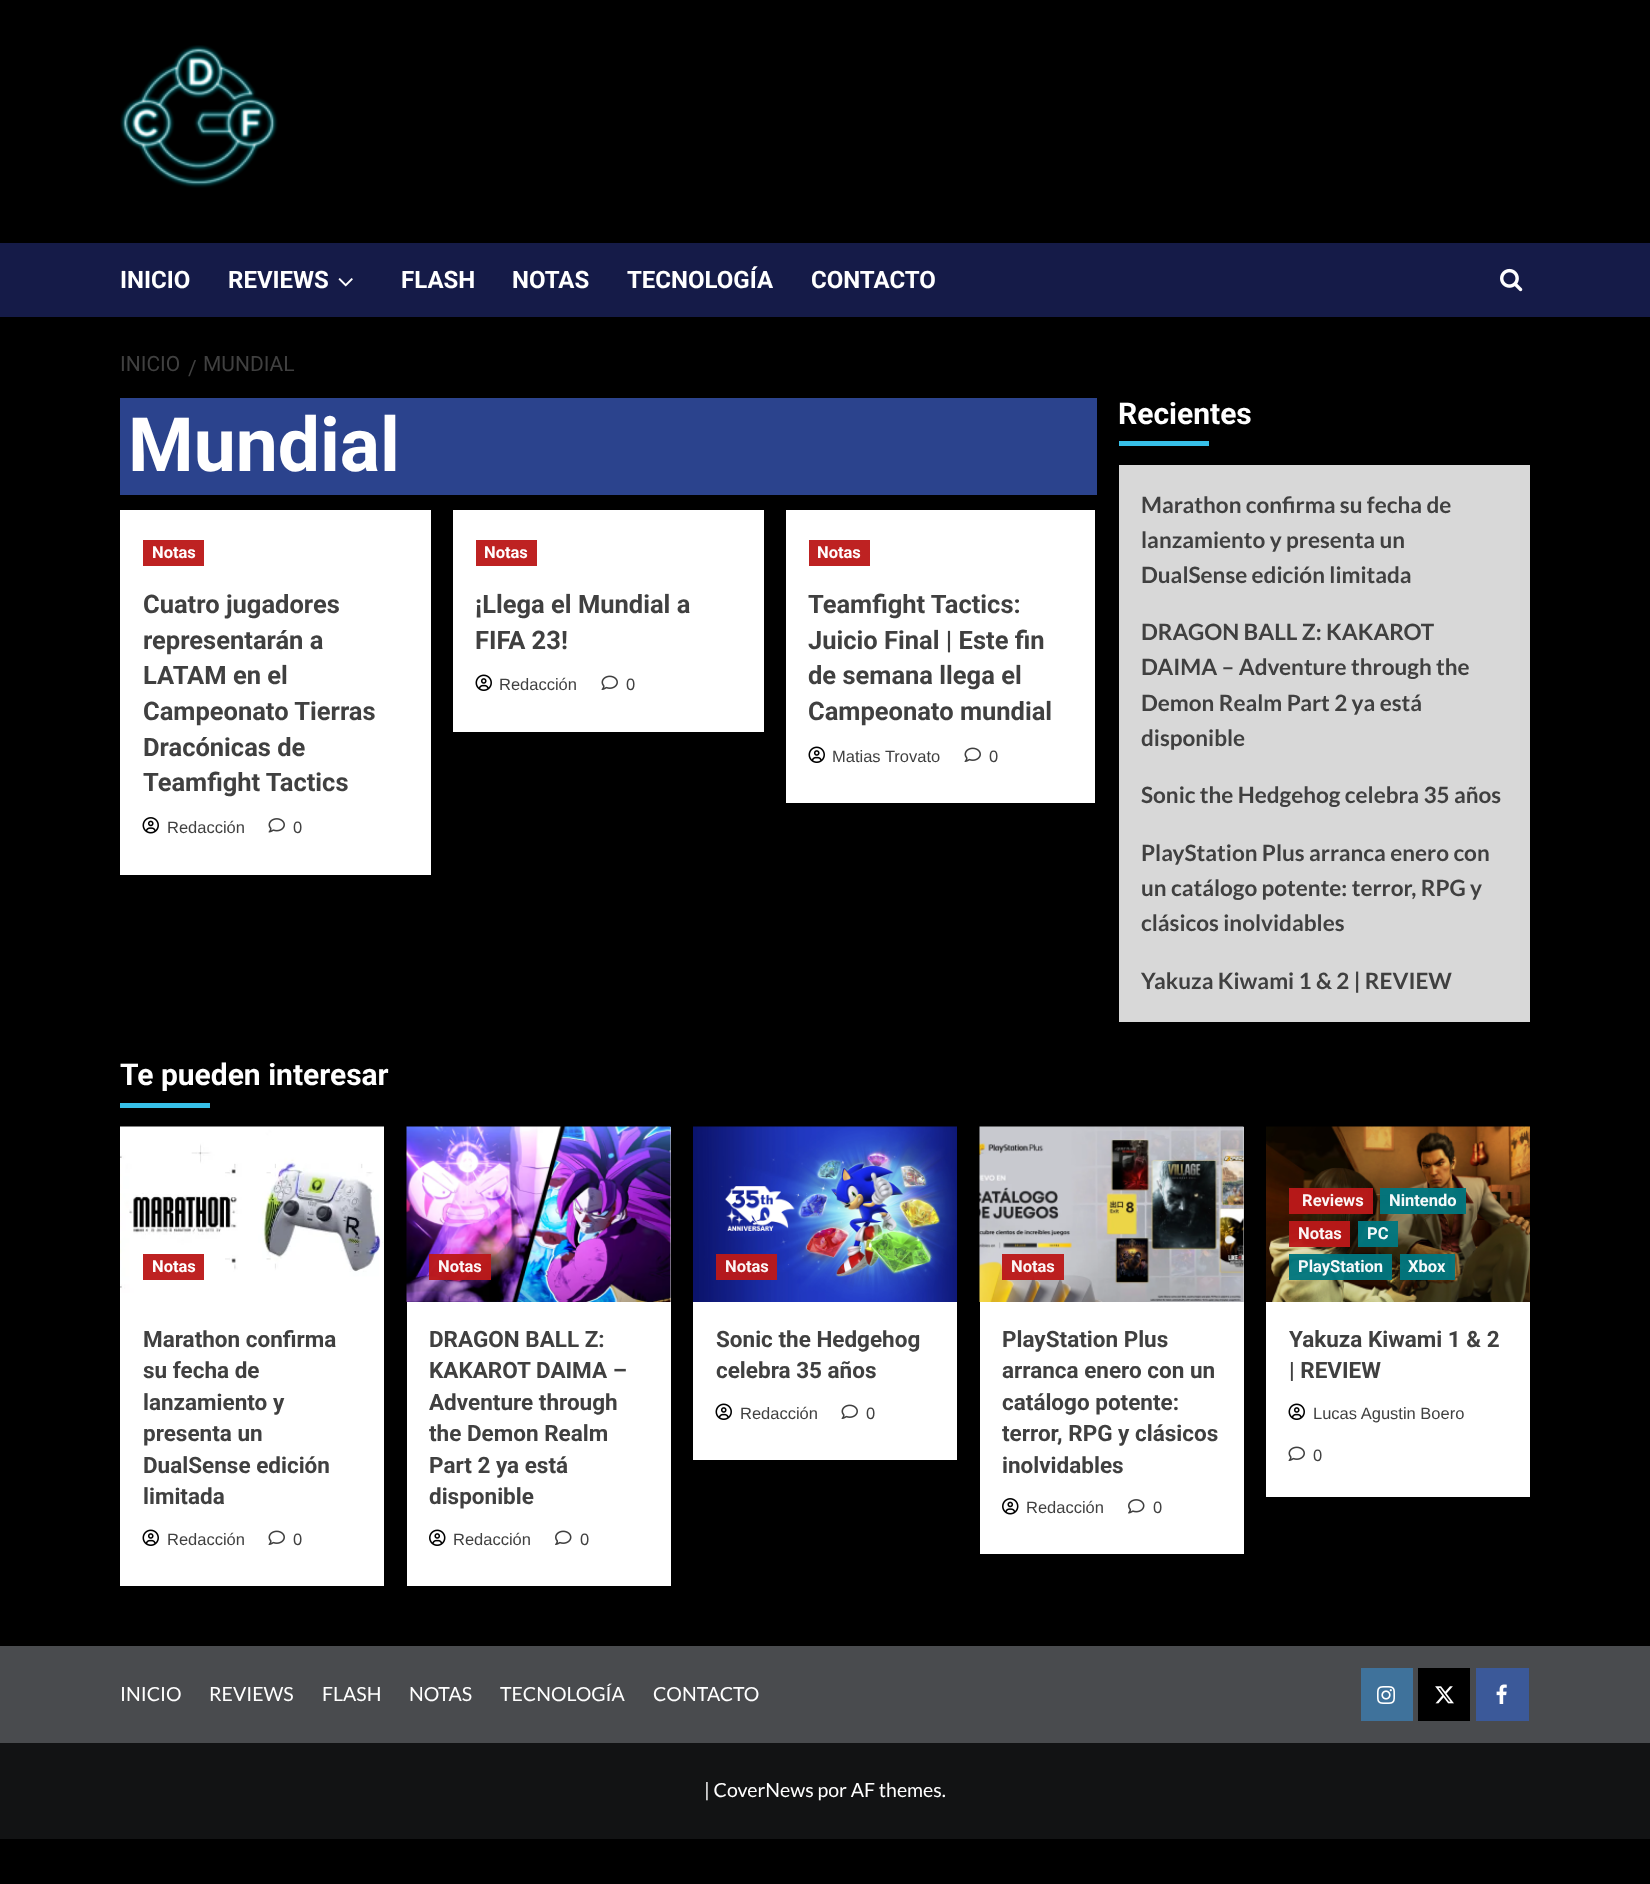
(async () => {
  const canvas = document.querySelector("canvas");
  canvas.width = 1650;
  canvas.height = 1884;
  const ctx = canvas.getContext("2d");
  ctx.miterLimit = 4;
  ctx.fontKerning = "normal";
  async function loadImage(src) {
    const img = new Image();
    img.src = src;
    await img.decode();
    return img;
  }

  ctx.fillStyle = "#000000";
  ctx.fillRect(0, 0, 1650, 1884);
  ctx.drawImage(await loadImage("img/1.png"), 120, 45, 158, 143);
  ctx.fillStyle = "#151b48";
  ctx.fillRect(0, 243, 1650, 74);
  ctx.drawImage(await loadImage("img/2.png"), 338, 278, 15, 9);
  ctx.drawImage(await loadImage("img/3.png"), 1500, 268, 23, 24);
  for (const [x, y, w, h, color] of [
    [120, 398, 977, 97, "#2b438d"],
    [120, 510, 311, 365, "#ffffff"],
    [143, 540, 61, 26, "#be2222"],
  ]) {
    ctx.fillStyle = color;
    ctx.fillRect(x, y, w, h);
  }
  ctx.drawImage(await loadImage("img/4.png"), 142, 817, 17, 17);
  ctx.drawImage(await loadImage("img/5.png"), 268, 818, 17, 15);
  ctx.fillStyle = "#ffffff";
  ctx.fillRect(453, 510, 311, 222);
  ctx.fillStyle = "#be2222";
  ctx.fillRect(476, 540, 61, 26);
  ctx.drawImage(await loadImage("img/6.png"), 475, 674, 17, 17);
  ctx.drawImage(await loadImage("img/7.png"), 601, 675, 17, 15);
  ctx.fillStyle = "#ffffff";
  ctx.fillRect(786, 510, 309, 293);
  ctx.fillStyle = "#be2222";
  ctx.fillRect(809, 540, 61, 26);
  ctx.drawImage(await loadImage("img/6.png"), 808, 746, 17, 17);
  ctx.drawImage(await loadImage("img/7.png"), 964, 747, 17, 15);
  for (const [x, y, w, h, color] of [
    [1119, 441, 90, 5, "#37c0e8"],
    [1119, 465, 411, 557, "#d8d8d8"],
    [120, 1103, 90, 5, "#37c0e8"],
    [120, 1302, 264, 284, "#ffffff"],
  ]) {
    ctx.fillStyle = color;
    ctx.fillRect(x, y, w, h);
  }
  ctx.drawImage(await loadImage("img/8.png"), 120, 1126, 264, 176);
  ctx.fillStyle = "#be2222";
  ctx.fillRect(143, 1254, 61, 26);
  ctx.drawImage(await loadImage("img/6.png"), 142, 1529, 17, 17);
  ctx.drawImage(await loadImage("img/7.png"), 268, 1530, 17, 15);
  ctx.fillStyle = "#ffffff";
  ctx.fillRect(407, 1302, 264, 284);
  ctx.fillStyle = "#d8d8d8";
  ctx.fillRect(670, 1127, 1, 175);
  ctx.drawImage(await loadImage("img/9.png"), 406, 1126, 265, 176);
  ctx.fillStyle = "rgba(187, 25, 25, 0.96)";
  ctx.fillRect(429, 1254, 62, 26);
  ctx.drawImage(await loadImage("img/10.png"), 429, 1529, 17, 17);
  ctx.drawImage(await loadImage("img/11.png"), 555, 1530, 17, 15);
  ctx.fillStyle = "#ffffff";
  ctx.fillRect(693, 1302, 264, 158);
  ctx.drawImage(await loadImage("img/12.png"), 693, 1126, 264, 176);
  ctx.fillStyle = "rgba(187, 25, 25, 0.96)";
  ctx.fillRect(716, 1254, 61, 26);
  ctx.drawImage(await loadImage("img/6.png"), 715, 1403, 17, 17);
  ctx.drawImage(await loadImage("img/7.png"), 841, 1404, 17, 15);
  ctx.fillStyle = "#ffffff";
  ctx.fillRect(980, 1302, 264, 252);
  ctx.fillStyle = "#d8d8d8";
  ctx.fillRect(1243, 1127, 1, 175);
  ctx.drawImage(await loadImage("img/13.png"), 979, 1126, 265, 176);
  ctx.fillStyle = "rgba(187, 25, 25, 0.96)";
  ctx.fillRect(1002, 1254, 62, 26);
  ctx.drawImage(await loadImage("img/14.png"), 1002, 1498, 17, 17);
  ctx.drawImage(await loadImage("img/15.png"), 1128, 1499, 17, 15);
  ctx.fillStyle = "#ffffff";
  ctx.fillRect(1266, 1302, 264, 195);
  ctx.drawImage(await loadImage("img/16.png"), 1266, 1126, 264, 176);
  for (const [x, y, w, h, color] of [
    [1289, 1188, 84, 26, "rgba(187, 25, 25, 0.96)"],
    [1380, 1188, 86, 26, "rgba(1, 119, 127, 0.96)"],
    [1289, 1221, 61, 26, "rgba(187, 25, 25, 0.96)"],
    [1358, 1221, 40, 26, "rgba(1, 119, 127, 0.96)"],
    [1289, 1254, 103, 26, "rgba(1, 119, 127, 0.96)"],
    [1400, 1254, 55, 26, "rgba(1, 119, 127, 0.96)"],
  ]) {
    ctx.fillStyle = color;
    ctx.fillRect(x, y, w, h);
  }
  ctx.drawImage(await loadImage("img/6.png"), 1288, 1403, 17, 17);
  ctx.drawImage(await loadImage("img/7.png"), 1288, 1446, 17, 15);
  ctx.fillStyle = "#494b4e";
  ctx.fillRect(0, 1646, 1650, 97);
  ctx.fillStyle = "#3f729b";
  ctx.fillRect(1361, 1668, 52, 53);
  ctx.drawImage(await loadImage("img/17.png"), 1377, 1686, 18, 18);
  ctx.fillStyle = "#000000";
  ctx.fillRect(1418, 1668, 52, 53);
  ctx.drawImage(await loadImage("img/18.png"), 1435, 1686, 19, 18);
  ctx.fillStyle = "#3b5999";
  ctx.fillRect(1476, 1668, 53, 53);
  ctx.drawImage(await loadImage("img/19.png"), 1496, 1684, 11, 20);
  ctx.fillStyle = "#121314";
  ctx.fillRect(0, 1743, 1650, 96);
  ctx.font = "bold 24px Roboto";
  ctx.fillStyle = "#ffffff";
  for (const [text, x, y] of [
    ["INICIO", 120, 288],
    ["REVIEWS", 228, 288],
    ["FLASH", 401, 288],
    ["NOTAS", 512, 288],
    ["TECNOLOGÍA", 627, 288],
    ["CONTACTO", 811, 288],
  ]) {
    ctx.fillText(text, x, y);
  }
  ctx.font = "21px Roboto";
  ctx.fillStyle = "#404040";
  for (const [text, x, y] of [
    ["INICIO", 120, 371],
    ["/", 188, 375],
    ["MUNDIAL", 203, 371],
  ]) {
    ctx.fillText(text, x, y);
  }
  ctx.font = "bold 75px Roboto";
  ctx.fillStyle = "#ffffff";
  ctx.fillText("Mundial", 128, 471);
  ctx.font = "bold 16.5px Roboto";
  ctx.fillText("Notas", 152, 558);
  ctx.font = "bold 25.5px Roboto";
  ctx.fillStyle = "#404040";
  for (const [text, x, y] of [
    ["Cuatro jugadores", 143, 613],
    ["representarán a", 143, 649],
    ["LATAM en el", 143, 684],
    ["Campeonato Tierras", 143, 720],
    ["Dracónicas de", 143, 756],
    ["Teamfight Tactics", 143, 791],
  ]) {
    ctx.fillText(text, x, y);
  }
  ctx.font = "16.5px Liberation Sans";
  ctx.fillText("Redacción", 167, 833);
  ctx.fillText("0", 293, 833);
  ctx.font = "bold 16.5px Roboto";
  ctx.fillStyle = "#ffffff";
  ctx.fillText("Notas", 484, 558);
  ctx.font = "bold 25.5px Roboto";
  ctx.fillStyle = "#404040";
  ctx.fillText("¡Llega el Mundial a", 475, 613);
  ctx.fillText("FIFA 23!", 475, 649);
  ctx.font = "16.5px Liberation Sans";
  ctx.fillText("Redacción", 499, 690);
  ctx.fillText("0", 626, 690);
  ctx.font = "bold 16.5px Roboto";
  ctx.fillStyle = "#ffffff";
  ctx.fillText("Notas", 817, 558);
  ctx.font = "bold 25.5px Roboto";
  ctx.fillStyle = "#404040";
  for (const [text, x, y] of [
    ["Teamfight Tactics:", 808, 613],
    ["Juicio Final | Este fin", 808, 649],
    ["de semana llega el", 808, 684],
    ["Campeonato mundial", 808, 720],
  ]) {
    ctx.fillText(text, x, y);
  }
  ctx.font = "16.5px Liberation Sans";
  ctx.fillText("Matias Trovato", 832, 762);
  ctx.fillText("0", 989, 762);
  ctx.font = "bold 30px Roboto";
  ctx.fillStyle = "#ffffff";
  ctx.fillText("Recientes", 1118, 424);
  ctx.font = "bold 22.5px Lato";
  ctx.fillStyle = "#404040";
  for (const [text, x, y] of [
    ["Marathon confirma su fecha de", 1141, 513],
    ["lanzamiento y presenta un", 1141, 548],
    ["DualSense edición limitada", 1141, 583],
    ["DRAGON BALL Z: KAKAROT", 1141, 640],
    ["DAIMA – Adventure through the", 1141, 675],
    ["Demon Realm Part 2 ya está", 1141, 711],
    ["disponible", 1141, 746],
    ["Sonic the Hedgehog celebra 35 años", 1141, 803],
    ["PlayStation Plus arranca enero con", 1141, 861],
    ["un catálogo potente: terror, RPG y", 1141, 896],
    ["clásicos inolvidables", 1141, 931],
    ["Yakuza Kiwami 1 & 2 | REVIEW", 1141, 989],
  ]) {
    ctx.fillText(text, x, y);
  }
  ctx.font = "bold 30px Roboto";
  ctx.fillStyle = "#ffffff";
  ctx.fillText("Te pueden interesar", 120, 1085);
  ctx.font = "bold 16.5px Roboto";
  ctx.fillText("Notas", 152, 1272);
  ctx.font = "bold 22.5px Roboto";
  ctx.fillStyle = "#404040";
  for (const [text, x, y] of [
    ["Marathon confirma", 143, 1347],
    ["su fecha de", 143, 1378],
    ["lanzamiento y", 143, 1410],
    ["presenta un", 143, 1441],
    ["DualSense edición", 143, 1473],
    ["limitada", 143, 1504],
  ]) {
    ctx.fillText(text, x, y);
  }
  ctx.font = "16.5px Liberation Sans";
  ctx.fillText("Redacción", 167, 1545);
  ctx.fillText("0", 293, 1545);
  ctx.font = "bold 16.5px Roboto";
  ctx.fillStyle = "#fcf6f6";
  ctx.fillText("Notas", 438, 1272);
  ctx.font = "bold 22.5px Roboto";
  ctx.fillStyle = "#404040";
  for (const [text, x, y] of [
    ["DRAGON BALL Z:", 429, 1347],
    ["KAKAROT DAIMA –", 429, 1378],
    ["Adventure through", 429, 1410],
    ["the Demon Realm", 429, 1441],
    ["Part 2 ya está", 429, 1473],
    ["disponible", 429, 1504],
  ]) {
    ctx.fillText(text, x, y);
  }
  ctx.font = "16.5px Liberation Sans";
  ctx.fillText("Redacción", 453, 1545);
  ctx.fillText("0", 580, 1545);
  ctx.font = "bold 16.5px Roboto";
  ctx.fillStyle = "#fcf6f6";
  ctx.fillText("Notas", 725, 1272);
  ctx.font = "bold 22.5px Roboto";
  ctx.fillStyle = "#404040";
  ctx.fillText("Sonic the Hedgehog", 716, 1347);
  ctx.fillText("celebra 35 años", 716, 1378);
  ctx.font = "16.5px Liberation Sans";
  ctx.fillText("Redacción", 740, 1419);
  ctx.fillText("0", 866, 1419);
  ctx.font = "bold 16.5px Roboto";
  ctx.fillStyle = "#fcf6f6";
  ctx.fillText("Notas", 1011, 1272);
  ctx.font = "bold 22.5px Roboto";
  ctx.fillStyle = "#404040";
  for (const [text, x, y] of [
    ["PlayStation Plus", 1002, 1347],
    ["arranca enero con un", 1002, 1378],
    ["catálogo potente:", 1002, 1410],
    ["terror, RPG y clásicos", 1002, 1441],
    ["inolvidables", 1002, 1473],
  ]) {
    ctx.fillText(text, x, y);
  }
  ctx.font = "16.5px Liberation Sans";
  ctx.fillText("Redacción", 1026, 1513);
  ctx.fillText("0", 1153, 1513);
  ctx.font = "bold 16.5px Roboto";
  ctx.fillStyle = "#fcf6f6";
  ctx.fillText(" Reviews", 1298, 1206);
  ctx.fillStyle = "#f5f9fa";
  ctx.fillText("Nintendo", 1389, 1206);
  ctx.fillStyle = "#fcf6f6";
  ctx.fillText("Notas", 1298, 1239);
  ctx.fillStyle = "#f5f9fa";
  for (const [text, x, y] of [
    ["PC", 1367, 1239],
    ["PlayStation", 1298, 1272],
    ["Xbox", 1408, 1272],
  ]) {
    ctx.fillText(text, x, y);
  }
  ctx.font = "bold 22.5px Roboto";
  ctx.fillStyle = "#404040";
  ctx.fillText("Yakuza Kiwami 1 & 2", 1289, 1347);
  ctx.fillText("| REVIEW", 1289, 1378);
  ctx.font = "16.5px Liberation Sans";
  ctx.fillText("Lucas Agustin Boero", 1313, 1419);
  ctx.fillText("0", 1313, 1461);
  ctx.font = "19.5px Lato";
  ctx.fillStyle = "#ffffff";
  for (const [text, x, y] of [
    ["INICIO", 120, 1701],
    ["REVIEWS", 209, 1701],
    ["FLASH", 322, 1701],
    ["NOTAS", 409, 1701],
    ["TECNOLOGÍA", 500, 1701],
    ["CONTACTO", 653, 1701],
    ["| CoverNews por AF themes.", 704, 1797],
  ]) {
    ctx.fillText(text, x, y);
  }
})();
